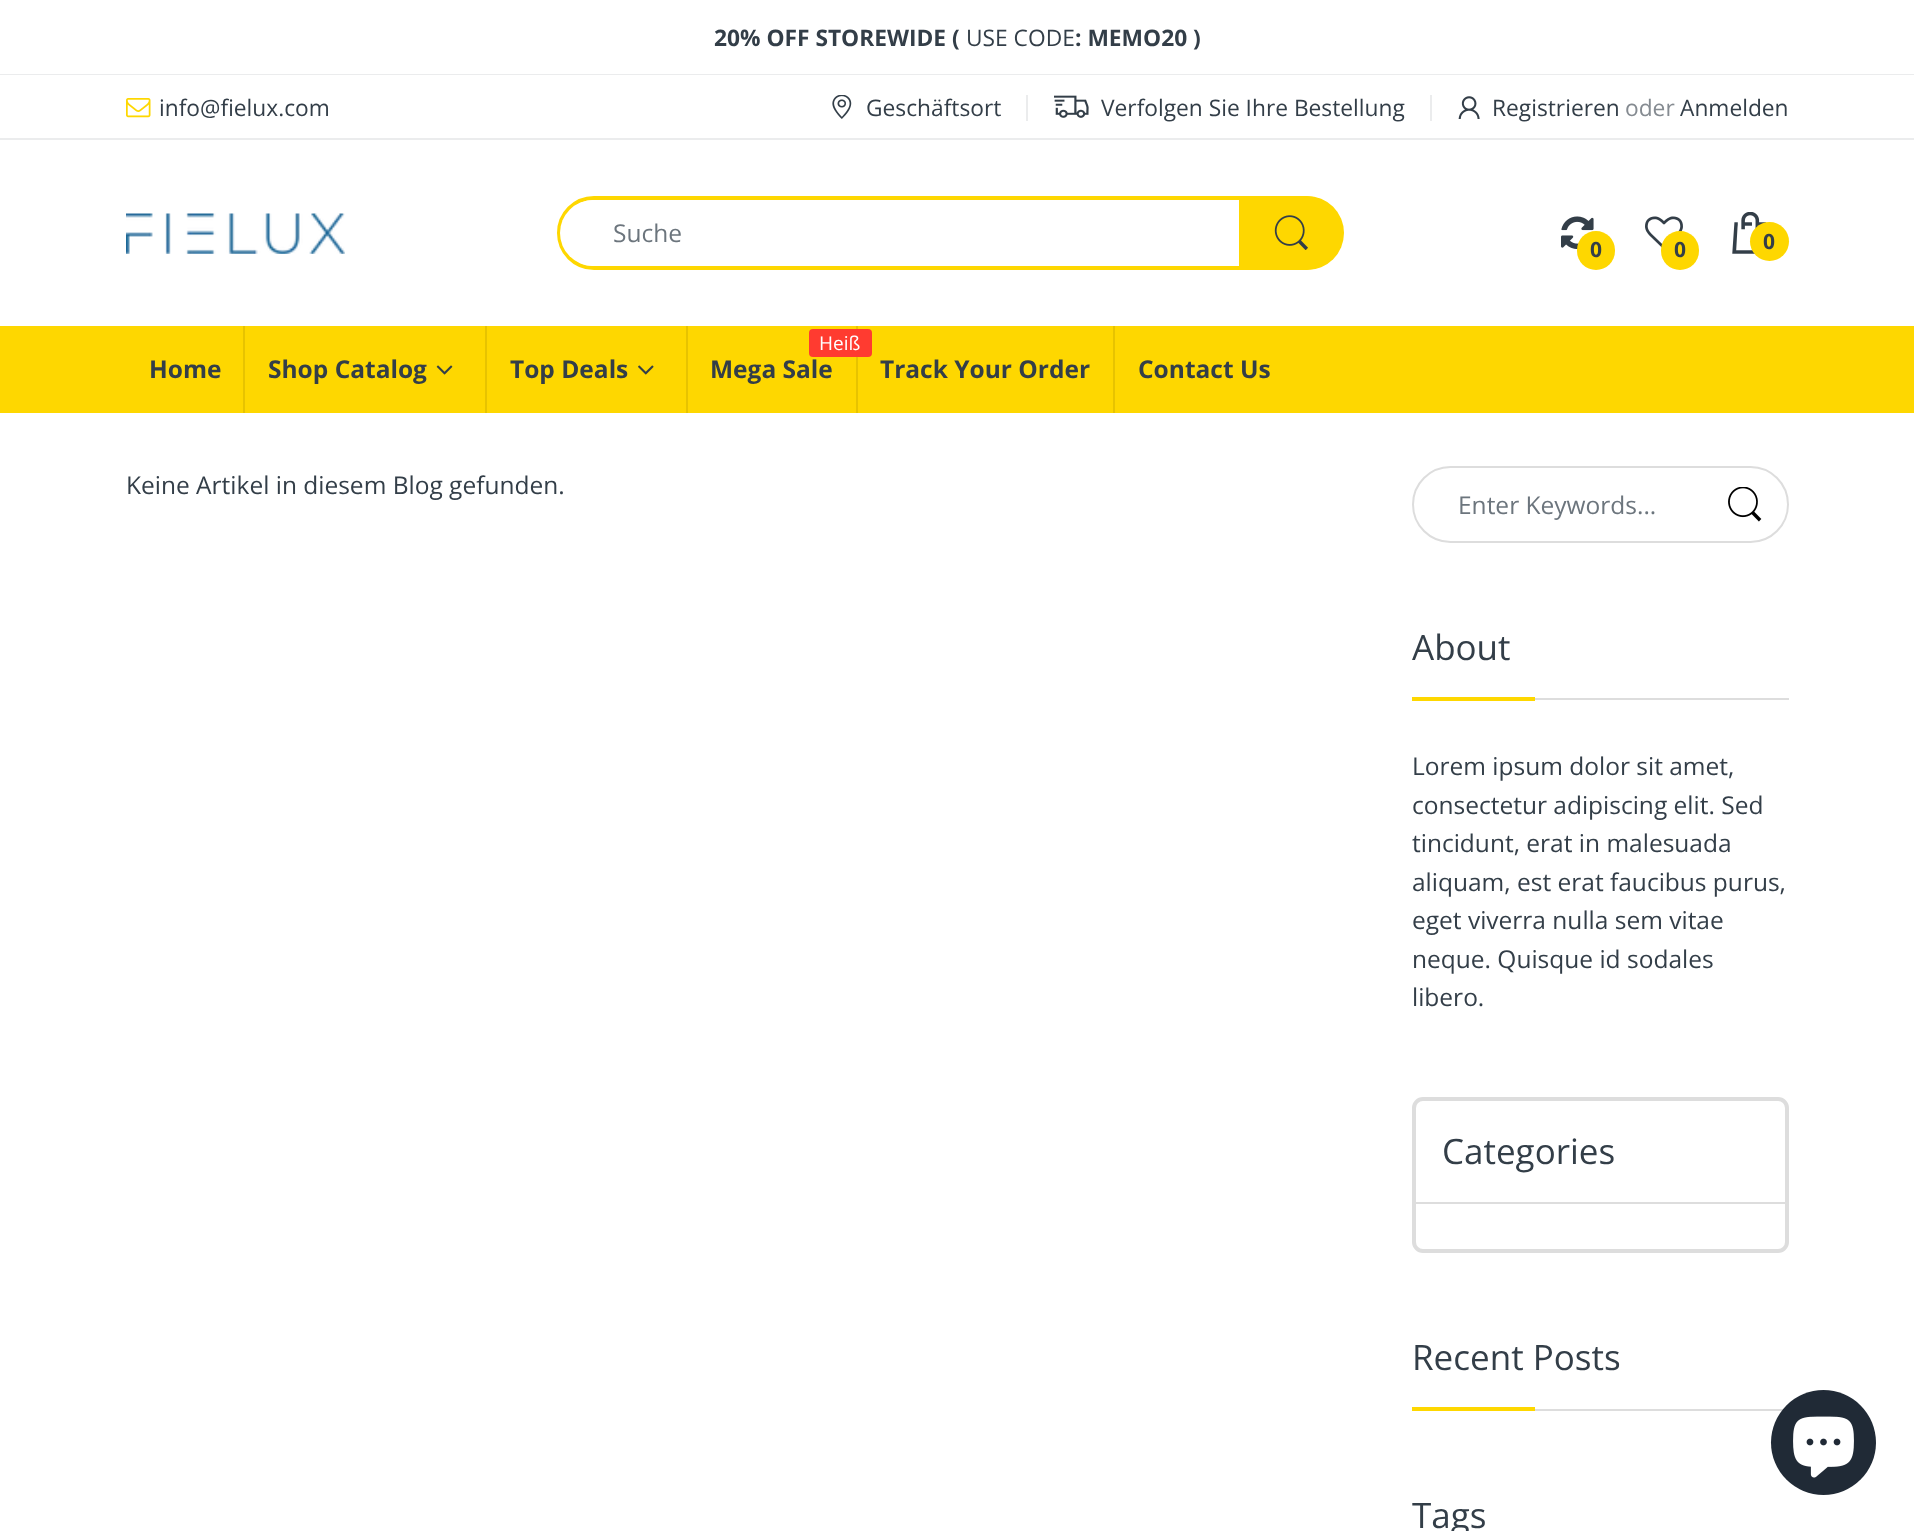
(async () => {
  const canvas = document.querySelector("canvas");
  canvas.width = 1914;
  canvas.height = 1531;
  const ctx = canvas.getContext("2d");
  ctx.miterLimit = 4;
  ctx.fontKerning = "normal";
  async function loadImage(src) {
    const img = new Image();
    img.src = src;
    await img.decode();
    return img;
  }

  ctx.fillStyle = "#ffffff";
  ctx.fillRect(0, 0, 1914, 1531);
  ctx.fillStyle = "#ebeced";
  ctx.fillRect(0, 74, 1914, 1);
  ctx.fillRect(0, 138, 1914, 2);
  ctx.drawImage(await loadImage("img/1.png"), 126, 98, 25, 20);
  ctx.drawImage(await loadImage("img/2.png"), 832, 95, 20, 24);
  ctx.fillRect(1026, 95, 2, 26);
  ctx.drawImage(await loadImage("img/3.png"), 1054, 95, 35, 23);
  ctx.fillRect(1430, 95, 2, 26);
  ctx.drawImage(await loadImage("img/4.png"), 1458, 96, 22, 23);
  ctx.drawImage(await loadImage("img/5.png"), 126, 213, 219, 41);
  ctx.beginPath();
  ctx.roundRect(559, 198, 781, 70, 35);
  ctx.strokeStyle = "#fed700";
  ctx.lineWidth = 4;
  ctx.stroke();
  ctx.fillStyle = "#ffffff";
  ctx.beginPath();
  ctx.roundRect(560, 200, 779, 66, 33);
  ctx.fill();
  ctx.fillStyle = "#fed700";
  ctx.beginPath();
  ctx.roundRect(1239, 196, 105, 74, [0, 37, 37, 0]);
  ctx.fill();
  ctx.drawImage(await loadImage("img/6.png"), 1274, 215, 34, 35);
  ctx.drawImage(await loadImage("img/7.png"), 1561, 216, 33, 33);
  ctx.beginPath();
  ctx.roundRect(1577, 231, 38, 39, 19);
  ctx.fill();
  ctx.drawImage(await loadImage("img/8.png"), 1645, 216, 38, 32);
  ctx.beginPath();
  ctx.roundRect(1661, 231, 38, 39, 19);
  ctx.fill();
  ctx.drawImage(await loadImage("img/9.png"), 1732, 212, 35, 42);
  ctx.beginPath();
  ctx.arc(1769.5, 241.5, 19.5, 0, Math.PI * 2);
  ctx.fill();
  for (const [x, y, w, h, color] of [
    [0, 326, 1914, 87, "#fed700"],
    [243, 326, 2, 87, "#e7c300"],
    [485, 326, 2, 87, "#e7c300"],
  ]) {
    ctx.fillStyle = color;
    ctx.fillRect(x, y, w, h);
  }
  ctx.drawImage(await loadImage("img/10.png"), 436, 365, 17, 10);
  ctx.fillRect(686, 326, 2, 87);
  ctx.drawImage(await loadImage("img/11.png"), 638, 365, 16, 10);
  ctx.fillRect(856, 326, 2, 87);
  ctx.fillStyle = "#ff3b30";
  ctx.beginPath();
  ctx.roundRect(809, 329, 63, 28, 4);
  ctx.fill();
  ctx.fillStyle = "#e7c300";
  ctx.fillRect(1113, 326, 2, 87);
  ctx.beginPath();
  ctx.roundRect(1413, 467, 375, 75, 37.5);
  ctx.strokeStyle = "#dddddd";
  ctx.lineWidth = 2;
  ctx.stroke();
  ctx.drawImage(await loadImage("img/12.png"), 1728, 487, 34, 35);
  ctx.fillStyle = "#dddddd";
  ctx.fillRect(1535, 698, 254, 2);
  ctx.fillStyle = "#fed700";
  ctx.fillRect(1412, 697, 123, 4);
  ctx.beginPath();
  ctx.roundRect(1414, 1099, 373, 152, 9);
  ctx.lineWidth = 4;
  ctx.stroke();
  for (const [x, y, w, h, color] of [
    [1416, 1202, 369, 2, "#dddddd"],
    [1535, 1409, 254, 2, "#dddddd"],
    [1412, 1407, 123, 4, "#fed700"],
  ]) {
    ctx.fillStyle = color;
    ctx.fillRect(x, y, w, h);
  }
  ctx.fillStyle = "#202a36";
  ctx.beginPath();
  ctx.arc(1823.5, 1442.5, 52.5, 0, Math.PI * 2);
  ctx.fill();
  ctx.drawImage(await loadImage("img/13.png"), 1793, 1416, 61, 62);
  ctx.font = "bold 22.75px Open Sans";
  ctx.fillStyle = "#333e48";
  ctx.fillText("20% OFF STOREWIDE (", 714, 46);
  ctx.font = "22.75px Open Sans";
  ctx.fillText("USE CODE", 966, 46);
  ctx.font = "bold 22.75px Open Sans";
  ctx.fillText(": MEMO20 )", 1075, 46);
  ctx.font = "22.75px Open Sans";
  for (const [text, x, y] of [
    ["info@fielux.com", 159, 116],
    ["Geschäftsort", 866, 116],
    ["Verfolgen Sie Ihre Bestellung", 1101, 116],
    ["Registrieren", 1492, 116],
  ]) {
    ctx.fillText(text, x, y);
  }
  ctx.fillStyle = "#858b91";
  ctx.fillText("oder", 1625, 116);
  ctx.fillStyle = "#333e48";
  ctx.fillText("Anmelden", 1680, 116);
  ctx.font = "24.5px Open Sans";
  ctx.fillStyle = "#6c757d";
  ctx.fillText("Suche", 613, 242);
  ctx.font = "bold 21px Open Sans";
  ctx.fillStyle = "#333e48";
  for (const [text, x, y] of [
    ["0", 1590, 257],
    ["0", 1674, 257],
    ["0", 1763, 249],
  ]) {
    ctx.fillText(text, x, y);
  }
  ctx.font = "bold 24.5px Open Sans";
  for (const [text, x, y] of [
    ["Home", 149, 378],
    ["Shop Catalog", 268, 378],
    ["Top Deals", 510, 378],
  ]) {
    ctx.fillText(text, x, y);
  }
  ctx.font = "19px Open Sans";
  ctx.fillStyle = "#ffffff";
  ctx.fillText("Heiß", 819, 350);
  ctx.font = "bold 24.5px Open Sans";
  ctx.fillStyle = "#333e48";
  for (const [text, x, y] of [
    ["Mega Sale", 710, 378],
    ["Track Your Order", 880, 378],
    ["Contact Us", 1138, 378],
  ]) {
    ctx.fillText(text, x, y);
  }
  ctx.font = "24.5px Open Sans";
  ctx.fillText("Keine Artikel in diesem Blog gefunden.", 126, 494);
  ctx.fillStyle = "#6c757d";
  ctx.fillText("Enter Keywords...", 1458, 514);
  ctx.font = "35px Open Sans";
  ctx.fillStyle = "#333e48";
  ctx.fillText("About", 1412, 660);
  ctx.font = "24.5px Open Sans";
  for (const [text, x, y] of [
    ["Lorem ipsum dolor sit amet,", 1412, 775],
    ["consectetur adipiscing elit. Sed", 1412, 814],
    ["tincidunt, erat in malesuada", 1412, 852],
    ["aliquam, est erat faucibus purus,", 1412, 891],
    ["eget viverra nulla sem vitae", 1412, 929],
    ["neque. Quisque id sodales", 1412, 968],
    ["libero.", 1412, 1006],
  ]) {
    ctx.fillText(text, x, y);
  }
  ctx.font = "35px Open Sans";
  for (const [text, x, y] of [
    ["Categories", 1442, 1164],
    ["Recent Posts", 1412, 1370],
    ["Tags", 1412, 1528],
  ]) {
    ctx.fillText(text, x, y);
  }
})();
